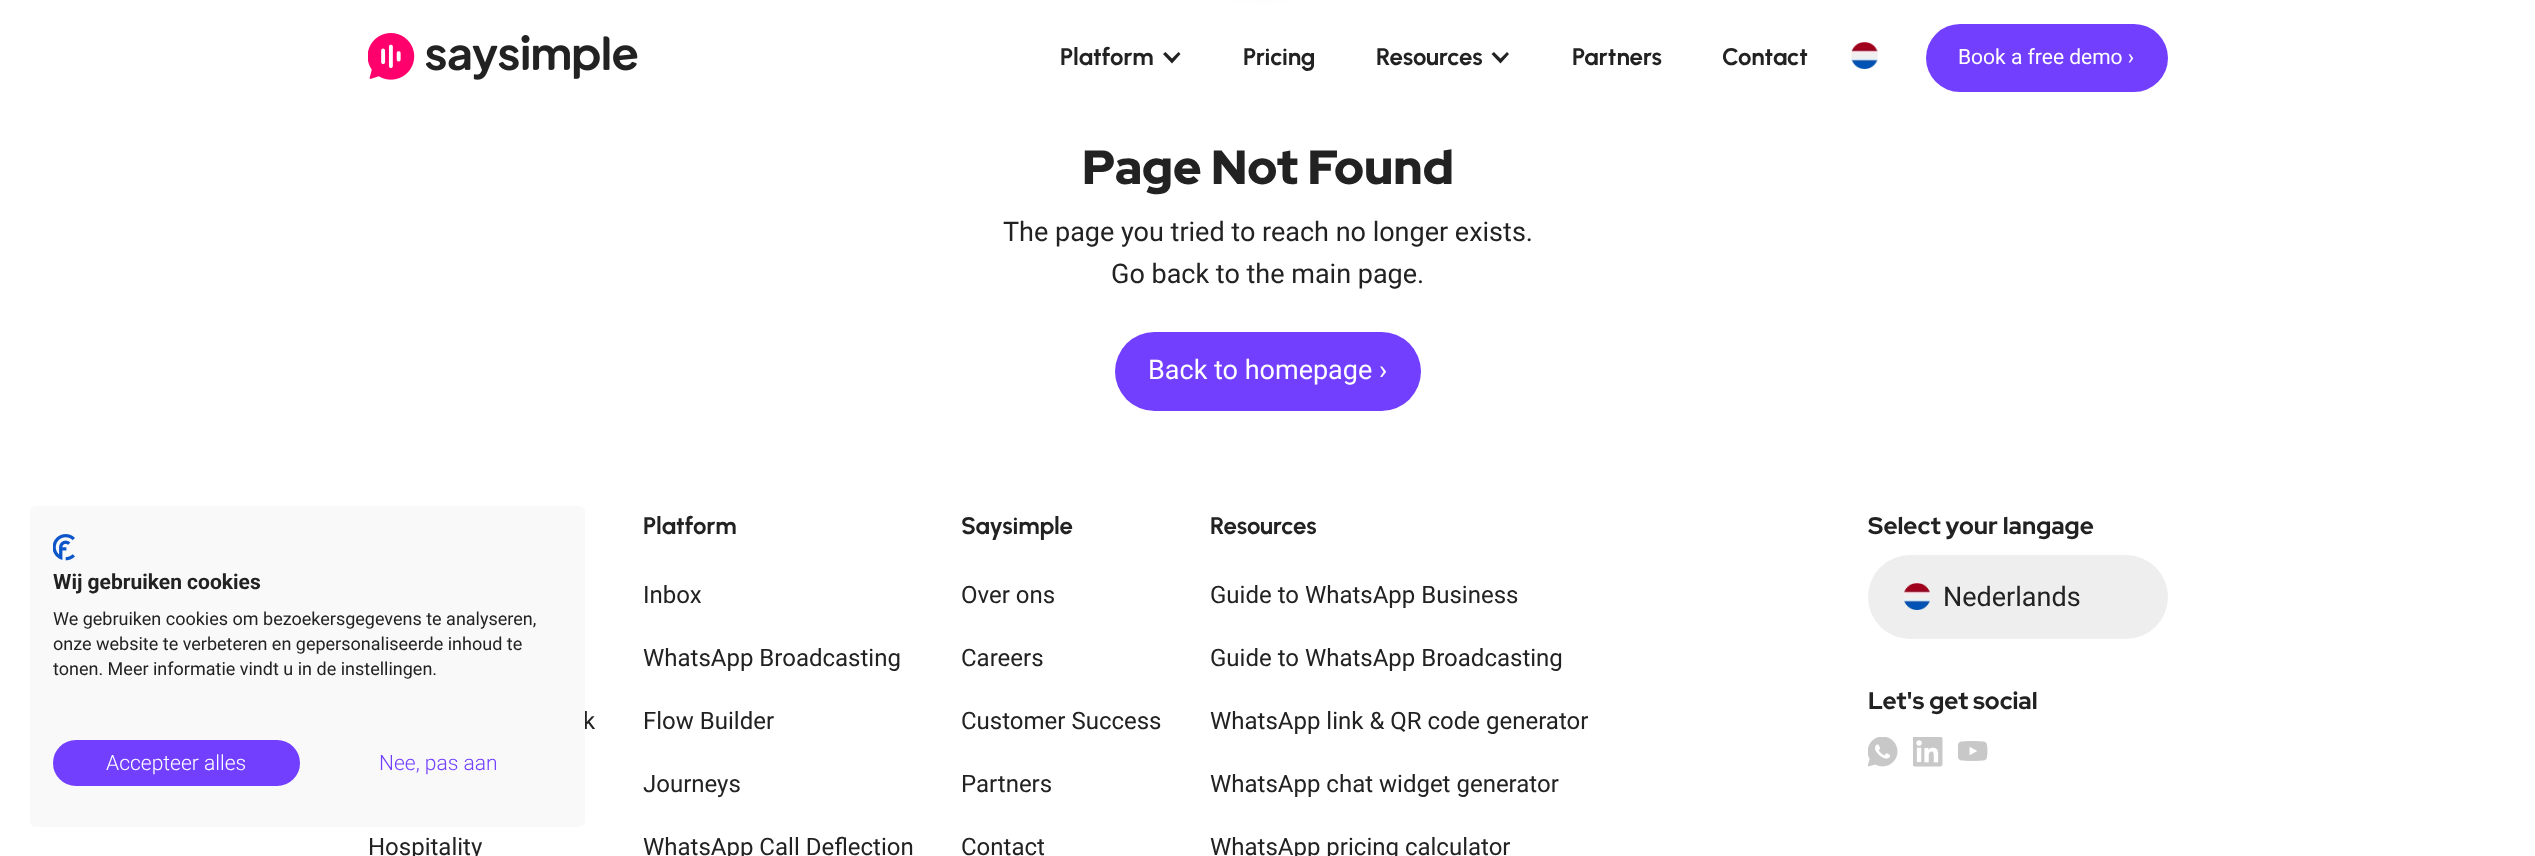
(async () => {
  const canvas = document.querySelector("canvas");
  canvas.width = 2535;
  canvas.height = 856;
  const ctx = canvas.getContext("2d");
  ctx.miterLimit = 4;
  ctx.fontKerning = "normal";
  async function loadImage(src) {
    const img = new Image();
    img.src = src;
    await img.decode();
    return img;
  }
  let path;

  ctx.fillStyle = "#ffffff";
  ctx.fillRect(0, 0, 2535, 856);
  ctx.drawImage(await loadImage("img/1.png"), 368, 33, 270, 47);
  ctx.fillStyle = "#222222";
  path = new Path2D("M1178.5 52L1172 58.5L1165.5 52L1163 54L1172 63.5L1180.5 54Z");
  ctx.fill(path);
  path = new Path2D("M1507 52L1500.5 58.5L1494 52L1491.5 54L1500.5 63.5L1509 54Z");
  ctx.fill(path);
  ctx.drawImage(await loadImage("img/2.png"), 1851, 42, 27, 27);
  ctx.fillStyle = "#733fff";
  ctx.beginPath();
  ctx.roundRect(1926, 24, 242, 68, 34);
  ctx.fill();
  ctx.drawImage(await loadImage("img/3.png"), 1228, 0, 67, 6);
  ctx.beginPath();
  ctx.roundRect(1115, 332, 306, 79, 39.5);
  ctx.fill();
  ctx.fillStyle = "#eeeeee";
  ctx.beginPath();
  ctx.roundRect(1868, 555, 300, 84, 42);
  ctx.fill();
  ctx.drawImage(await loadImage("img/5.png"), 1904, 583, 26, 27);
  ctx.drawImage(await loadImage("img/6.png"), 1868, 737, 30, 30);
  ctx.drawImage(await loadImage("img/7.png"), 1913, 737, 30, 30);
  ctx.drawImage(await loadImage("img/8.png"), 1958, 741, 30, 20);
  ctx.font = "bold 24px Urbanist";
  ctx.fillStyle = "#222222";
  for (const [text, x, y] of [
    ["Platform", 1060, 65],
    ["Pricing", 1243, 65],
    ["Resources", 1376, 65],
    ["Partners", 1572, 65],
    ["Contact", 1722, 65],
  ]) {
    ctx.fillText(text, x, y);
  }
  ctx.font = "21px Roboto";
  ctx.fillStyle = "#ffffff";
  ctx.fillText("Book a free demo ›", 1958, 64);
  ctx.font = "900 48px Red Hat Display";
  ctx.fillStyle = "#222222";
  ctx.fillText("Page Not Found", 1082, 184);
  ctx.font = "27px Roboto";
  ctx.fillText("The page you tried to reach no longer exists.", 1003, 241);
  ctx.fillText("Go back to the main page.", 1111, 283);
  ctx.fillStyle = "#ffffff";
  ctx.fillText("Back to homepage ›", 1148, 379);
  ctx.font = "24px Roboto";
  ctx.fillStyle = "#222222";
  ctx.fillText("k", 583, 729);
  ctx.fillStyle = "#f9f9f9";
  ctx.beginPath();
  ctx.roundRect(30, 506, 555, 321, 6);
  ctx.fill();
  ctx.font = "300 21px Roboto";
  ctx.fillStyle = "#733fff";
  ctx.fillText("Nee, pas aan", 379, 770);
  ctx.beginPath();
  ctx.roundRect(54, 741, 245, 44, 22);
  ctx.fill();
  ctx.strokeStyle = "#733fff";
  ctx.lineWidth = 2;
  ctx.stroke();
  ctx.fillStyle = "#ffffff";
  ctx.fillText("Accepteer alles", 106, 770);
  ctx.font = "18px Roboto";
  ctx.fillStyle = "#222222";
  for (const [text, x, y] of [
    ["tonen. Meer informatie vindt u in de instellingen.", 53, 675],
    ["onze website te verbeteren en gepersonaliseerde inhoud te", 53, 650],
    ["We gebruiken cookies om bezoekersgegevens te analyseren,", 53, 625],
  ]) {
    ctx.fillText(text, x, y);
  }
  ctx.font = "bold 21px Roboto";
  ctx.fillText("Wij gebruiken cookies", 53, 589);
  ctx.drawImage(await loadImage("img/4.png"), 53, 534, 22, 27);
  ctx.font = "24px Roboto";
  ctx.fillText("Hospitality", 368, 855);
  ctx.font = "bold 24px Urbanist";
  ctx.fillText("Platform", 643, 534);
  ctx.font = "24px Roboto";
  for (const [text, x, y] of [
    ["Inbox", 643, 603],
    ["WhatsApp Broadcasting", 643, 666],
    ["Flow Builder", 643, 729],
    ["Journeys", 643, 792],
    ["WhatsApp Call Deflection", 643, 855],
  ]) {
    ctx.fillText(text, x, y);
  }
  ctx.font = "bold 24px Urbanist";
  ctx.fillText("Saysimple", 961, 534);
  ctx.font = "24px Roboto";
  for (const [text, x, y] of [
    ["Over ons", 961, 603],
    ["Careers", 961, 666],
    ["Customer Success", 961, 729],
    ["Partners", 961, 792],
    ["Contact", 961, 855],
  ]) {
    ctx.fillText(text, x, y);
  }
  ctx.font = "bold 24px Urbanist";
  ctx.fillText("Resources", 1210, 534);
  ctx.font = "24px Roboto";
  for (const [text, x, y] of [
    ["Guide to WhatsApp Business", 1210, 603],
    ["Guide to WhatsApp Broadcasting", 1210, 666],
    ["WhatsApp link & QR code generator", 1210, 729],
    ["WhatsApp chat widget generator", 1210, 792],
    ["WhatsApp pricing calculator", 1210, 855],
  ]) {
    ctx.fillText(text, x, y);
  }
  ctx.font = "800 24px Red Hat Display";
  ctx.fillText("Select your langage", 1868, 534);
  ctx.font = "27px Roboto";
  ctx.fillText("Nederlands", 1943, 606);
  ctx.font = "800 24px Red Hat Display";
  ctx.fillText("Let's get social", 1868, 709);
})();
